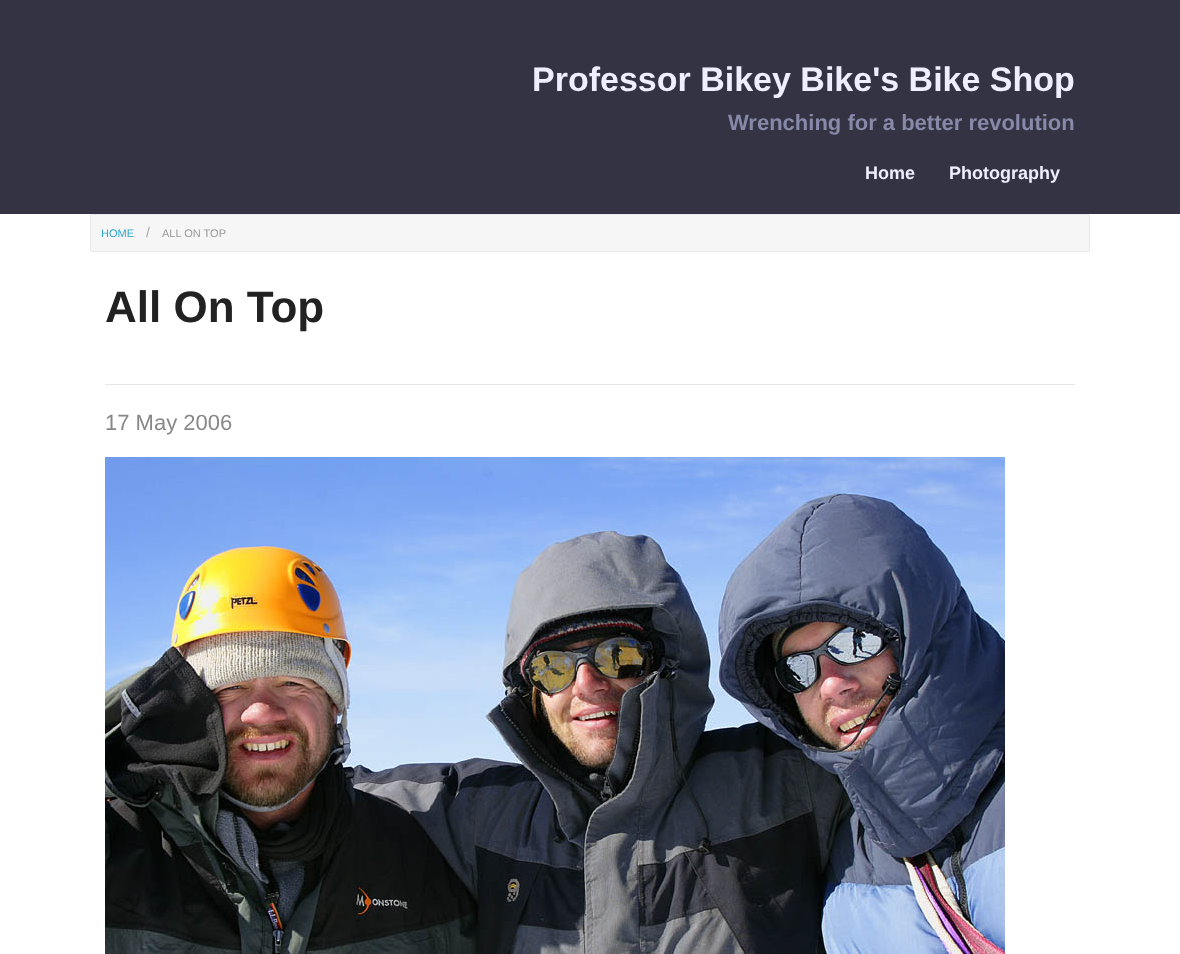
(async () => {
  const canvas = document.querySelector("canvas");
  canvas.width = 1180;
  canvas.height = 954;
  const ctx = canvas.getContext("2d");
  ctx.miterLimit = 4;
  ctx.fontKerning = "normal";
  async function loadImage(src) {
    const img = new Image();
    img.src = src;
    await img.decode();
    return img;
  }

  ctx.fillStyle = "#ffffff";
  ctx.fillRect(0, 0, 1180, 954);
  ctx.fillStyle = "#333343";
  ctx.fillRect(0, 0, 1180, 214);
  ctx.fillStyle = "#f6f6f6";
  ctx.beginPath();
  ctx.roundRect(90.5, 214.5, 999, 37, 1.5);
  ctx.fill();
  ctx.strokeStyle = "#e9e9e9";
  ctx.stroke();
  ctx.fillStyle = "#e6e6e6";
  ctx.fillRect(105, 384, 970, 1);
  ctx.drawImage(await loadImage("img/1.png"), 105, 457, 900, 497);
  ctx.font = "bold 34px Liberation Sans";
  ctx.fillStyle = "#eeeeff";
  ctx.fillText("Professor Bikey Bike's Bike Shop", 532, 91);
  ctx.font = "bold 22px Liberation Sans";
  ctx.fillStyle = "#8888a8";
  ctx.fillText("Wrenching for a better revolution", 728, 130);
  ctx.font = "bold 18px Liberation Sans";
  ctx.fillStyle = "#eeeeff";
  ctx.fillText("Home", 865, 179);
  ctx.fillText("Photography", 949, 179);
  ctx.font = "11px Liberation Sans";
  ctx.fillStyle = "#2ba6cb";
  ctx.fillText("HOME", 101, 237);
  ctx.font = "14px Liberation Sans";
  ctx.fillStyle = "#aaaaaa";
  ctx.fillText("/", 146, 237);
  ctx.font = "11px Liberation Sans";
  ctx.fillStyle = "#999999";
  ctx.fillText("ALL ON TOP", 162, 237);
  ctx.font = "bold 44px Liberation Sans";
  ctx.fillStyle = "#222222";
  ctx.fillText("All On Top", 105, 322);
  ctx.font = "22px Liberation Sans";
  ctx.fillStyle = "#888888";
  ctx.fillText("17 May 2006", 105, 430);
})();
